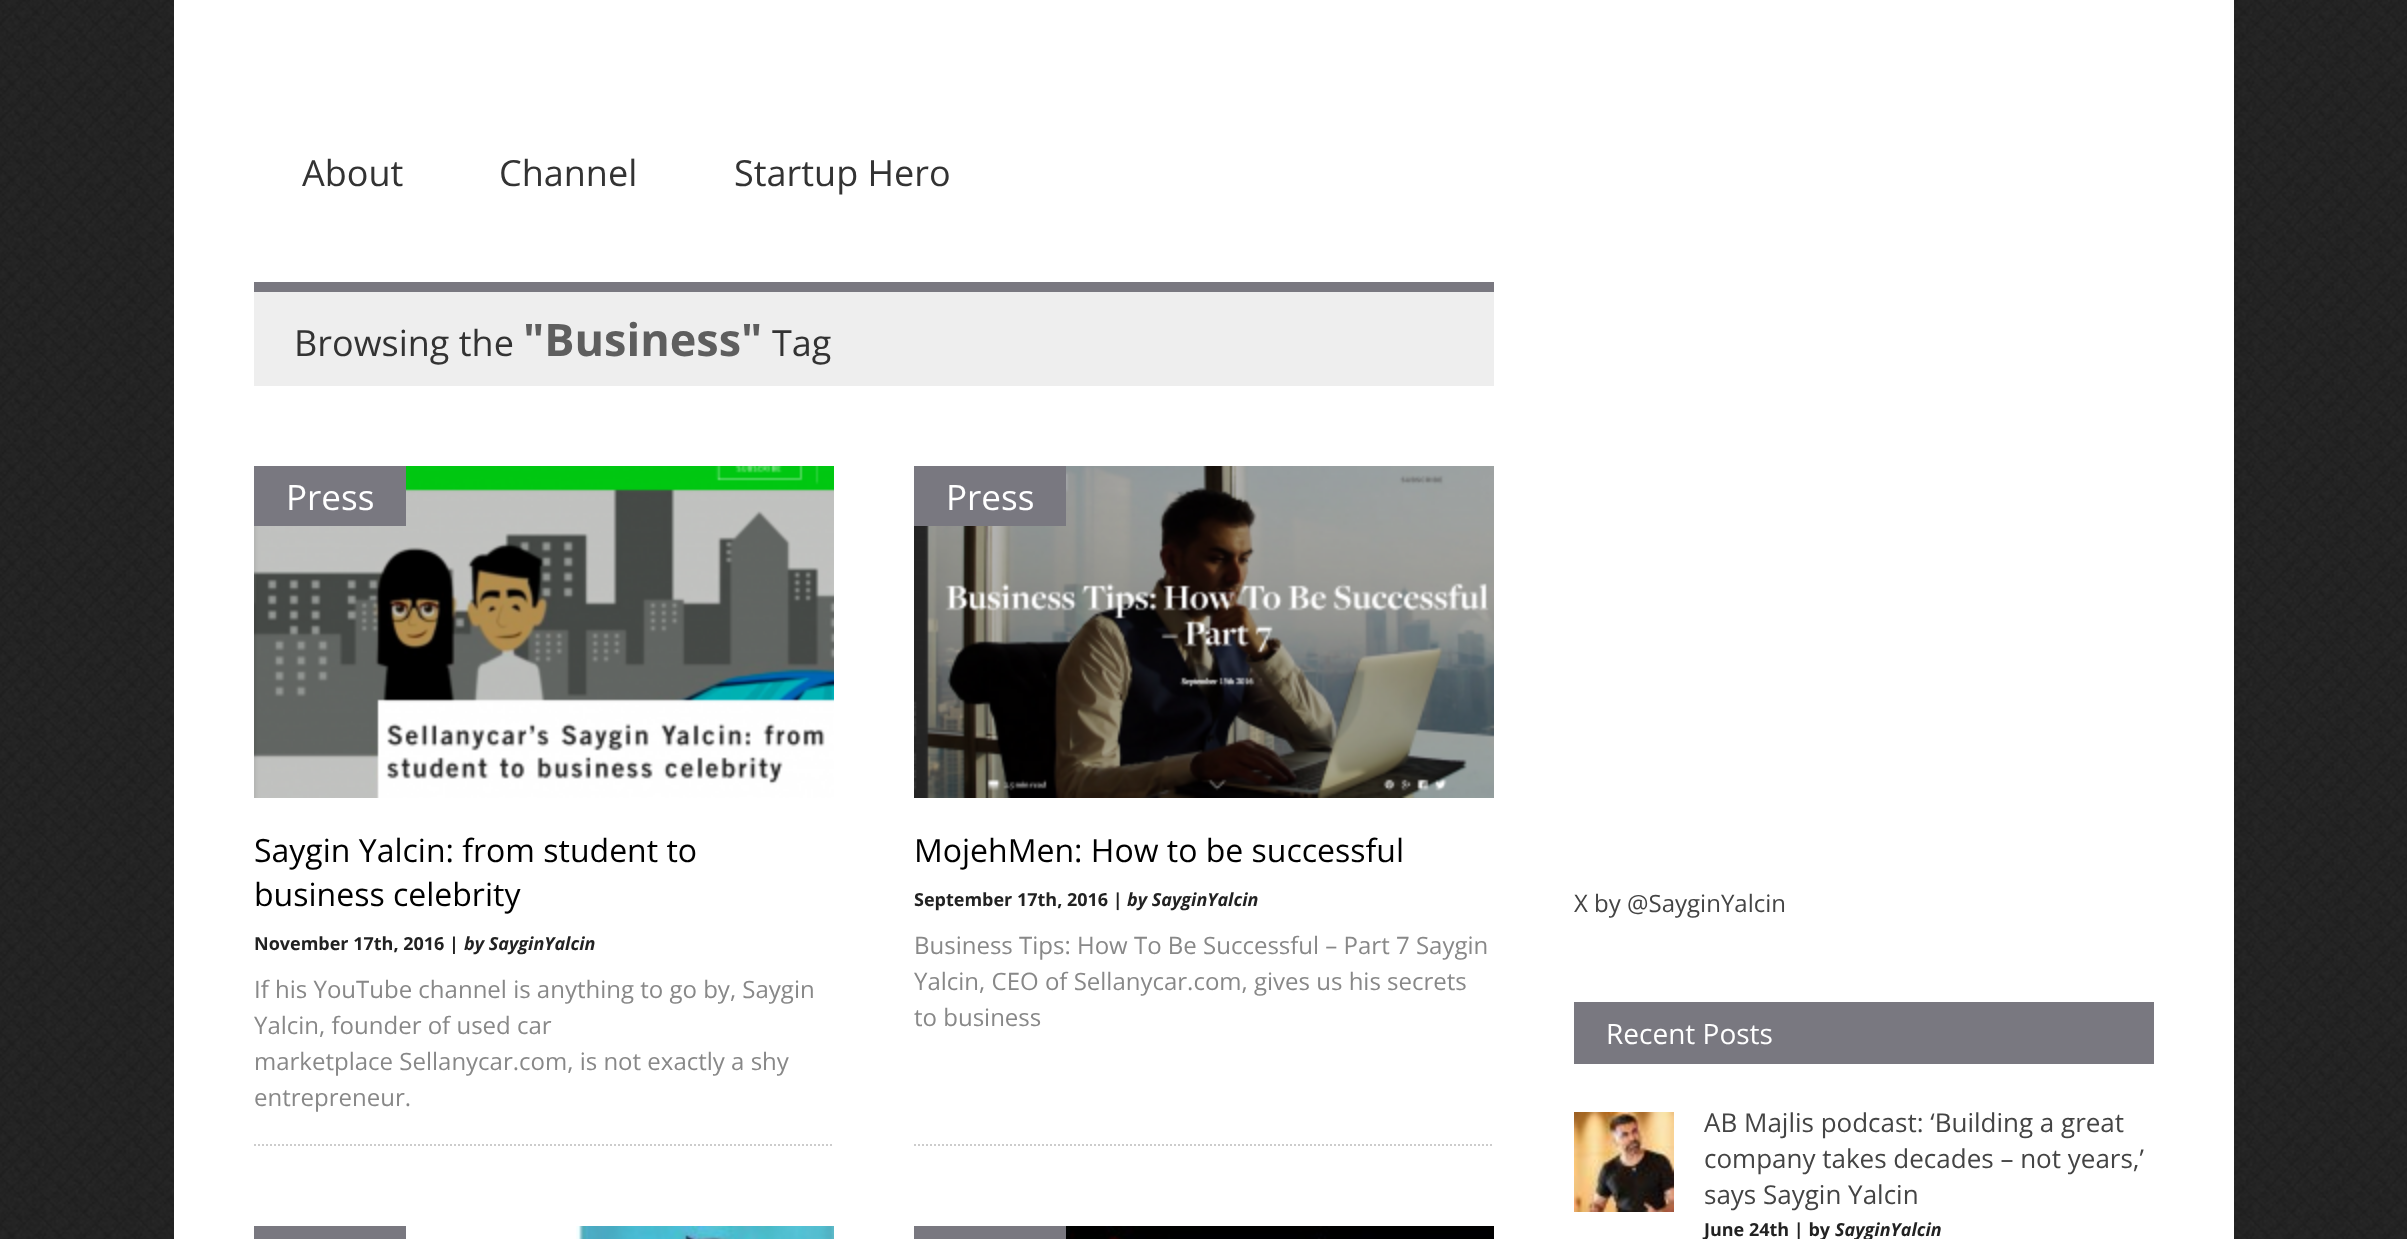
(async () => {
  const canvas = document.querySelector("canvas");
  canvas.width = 2407;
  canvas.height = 1239;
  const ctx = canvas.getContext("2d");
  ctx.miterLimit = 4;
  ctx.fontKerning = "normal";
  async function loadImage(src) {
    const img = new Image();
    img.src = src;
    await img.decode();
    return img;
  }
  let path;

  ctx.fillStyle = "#ffffff";
  ctx.fillRect(0, 0, 2407, 1239);
  ctx.drawImage(await loadImage("img/1.png"), 0, 0, 2407, 1239);
  for (const [x, y, w, h, color] of [
    [174, 0, 2060, 1239, "#ffffff"],
    [254, 292, 1240, 94, "#eeeeee"],
    [254, 282, 1240, 10, "#797880"],
  ]) {
    ctx.fillStyle = color;
    ctx.fillRect(x, y, w, h);
  }
  path = new Path2D("M254 1145H834");
  ctx.strokeStyle = "#cccccc";
  ctx.lineWidth = 2;
  ctx.setLineDash([2, 2]);
  ctx.stroke(path);
  ctx.drawImage(await loadImage("img/2.png"), 254, 466, 580, 332);
  ctx.fillRect(254, 466, 152, 60);
  path = new Path2D("M914 1145H1494");
  ctx.stroke(path);
  ctx.drawImage(await loadImage("img/3.png"), 914, 466, 580, 332);
  ctx.fillRect(914, 466, 152, 60);
  ctx.fillRect(254, 1226, 152, 13);
  ctx.drawImage(await loadImage("img/4.png"), 576, 1226, 258, 13);
  ctx.fillRect(914, 1226, 152, 13);
  ctx.drawImage(await loadImage("img/5.png"), 1066, 1226, 428, 13);
  ctx.fillRect(1574, 1002, 580, 62);
  ctx.drawImage(await loadImage("img/6.png"), 1574, 1112, 100, 100);
  ctx.font = "36px Open Sans";
  ctx.fillStyle = "#333333";
  for (const [text, x, y] of [
    ["About", 302, 186],
    ["Channel", 499, 186],
    ["Startup Hero", 734, 186],
    ["Browsing the", 294, 356],
  ]) {
    ctx.fillText(text, x, y);
  }
  ctx.font = "bold 45px Open Sans";
  ctx.fillStyle = "#5e5e5e";
  ctx.fillText("\"Business\"", 523, 356);
  ctx.font = "36px Open Sans";
  ctx.fillStyle = "#333333";
  ctx.fillText("Tag", 772, 356);
  ctx.font = "35px Open Sans";
  ctx.fillStyle = "#ffffff";
  ctx.fillText("Press", 286, 510);
  ctx.font = "32px Open Sans";
  ctx.fillStyle = "#000000";
  ctx.fillText("Saygin Yalcin: from student to", 254, 862);
  ctx.fillText("business celebrity", 254, 906);
  ctx.font = "bold 18px Open Sans";
  ctx.fillStyle = "#222222";
  ctx.fillText("November 17th, 2016 |", 254, 950);
  ctx.font = "italic bold 18px Open Sans";
  ctx.fillText("by SayginYalcin", 464, 950);
  ctx.font = "24px Open Sans";
  ctx.fillStyle = "#888888";
  for (const [text, x, y] of [
    ["If his YouTube channel is anything to go by, Saygin", 254, 998],
    ["Yalcin, founder of used car", 254, 1034],
    ["marketplace Sellanycar.com, is not exactly a shy", 254, 1070],
    ["entrepreneur.", 254, 1106],
  ]) {
    ctx.fillText(text, x, y);
  }
  ctx.font = "35px Open Sans";
  ctx.fillStyle = "#ffffff";
  ctx.fillText("Press", 946, 510);
  ctx.font = "32px Open Sans";
  ctx.fillStyle = "#000000";
  ctx.fillText("MojehMen: How to be successful", 914, 862);
  ctx.font = "bold 18px Open Sans";
  ctx.fillStyle = "#222222";
  ctx.fillText("September 17th, 2016 |", 914, 906);
  ctx.font = "italic bold 18px Open Sans";
  ctx.fillText("by SayginYalcin", 1127, 906);
  ctx.font = "24px Open Sans";
  ctx.fillStyle = "#888888";
  for (const [text, x, y] of [
    ["Business Tips: How To Be Successful – Part 7 Saygin", 914, 954],
    ["Yalcin, CEO of Sellanycar.com, gives us his secrets", 914, 990],
    ["to business", 914, 1026],
  ]) {
    ctx.fillText(text, x, y);
  }
  ctx.fillStyle = "#444444";
  ctx.fillText("X by @SayginYalcin", 1574, 912);
  ctx.font = "28px Open Sans";
  ctx.fillStyle = "#ffffff";
  ctx.fillText("Recent Posts", 1606, 1044);
  ctx.font = "26px Open Sans";
  ctx.fillStyle = "#444444";
  for (const [text, x, y] of [
    ["AB Majlis podcast: ‘Building a great", 1704, 1132],
    ["company takes decades – not years,’", 1704, 1168],
    ["says Saygin Yalcin", 1704, 1204],
  ]) {
    ctx.fillText(text, x, y);
  }
  ctx.font = "bold 18px Open Sans";
  ctx.fillStyle = "#222222";
  ctx.fillText("June 24th | by", 1704, 1236);
  ctx.font = "italic bold 18px Open Sans";
  ctx.fillText("SayginYalcin", 1835, 1236);
})();
